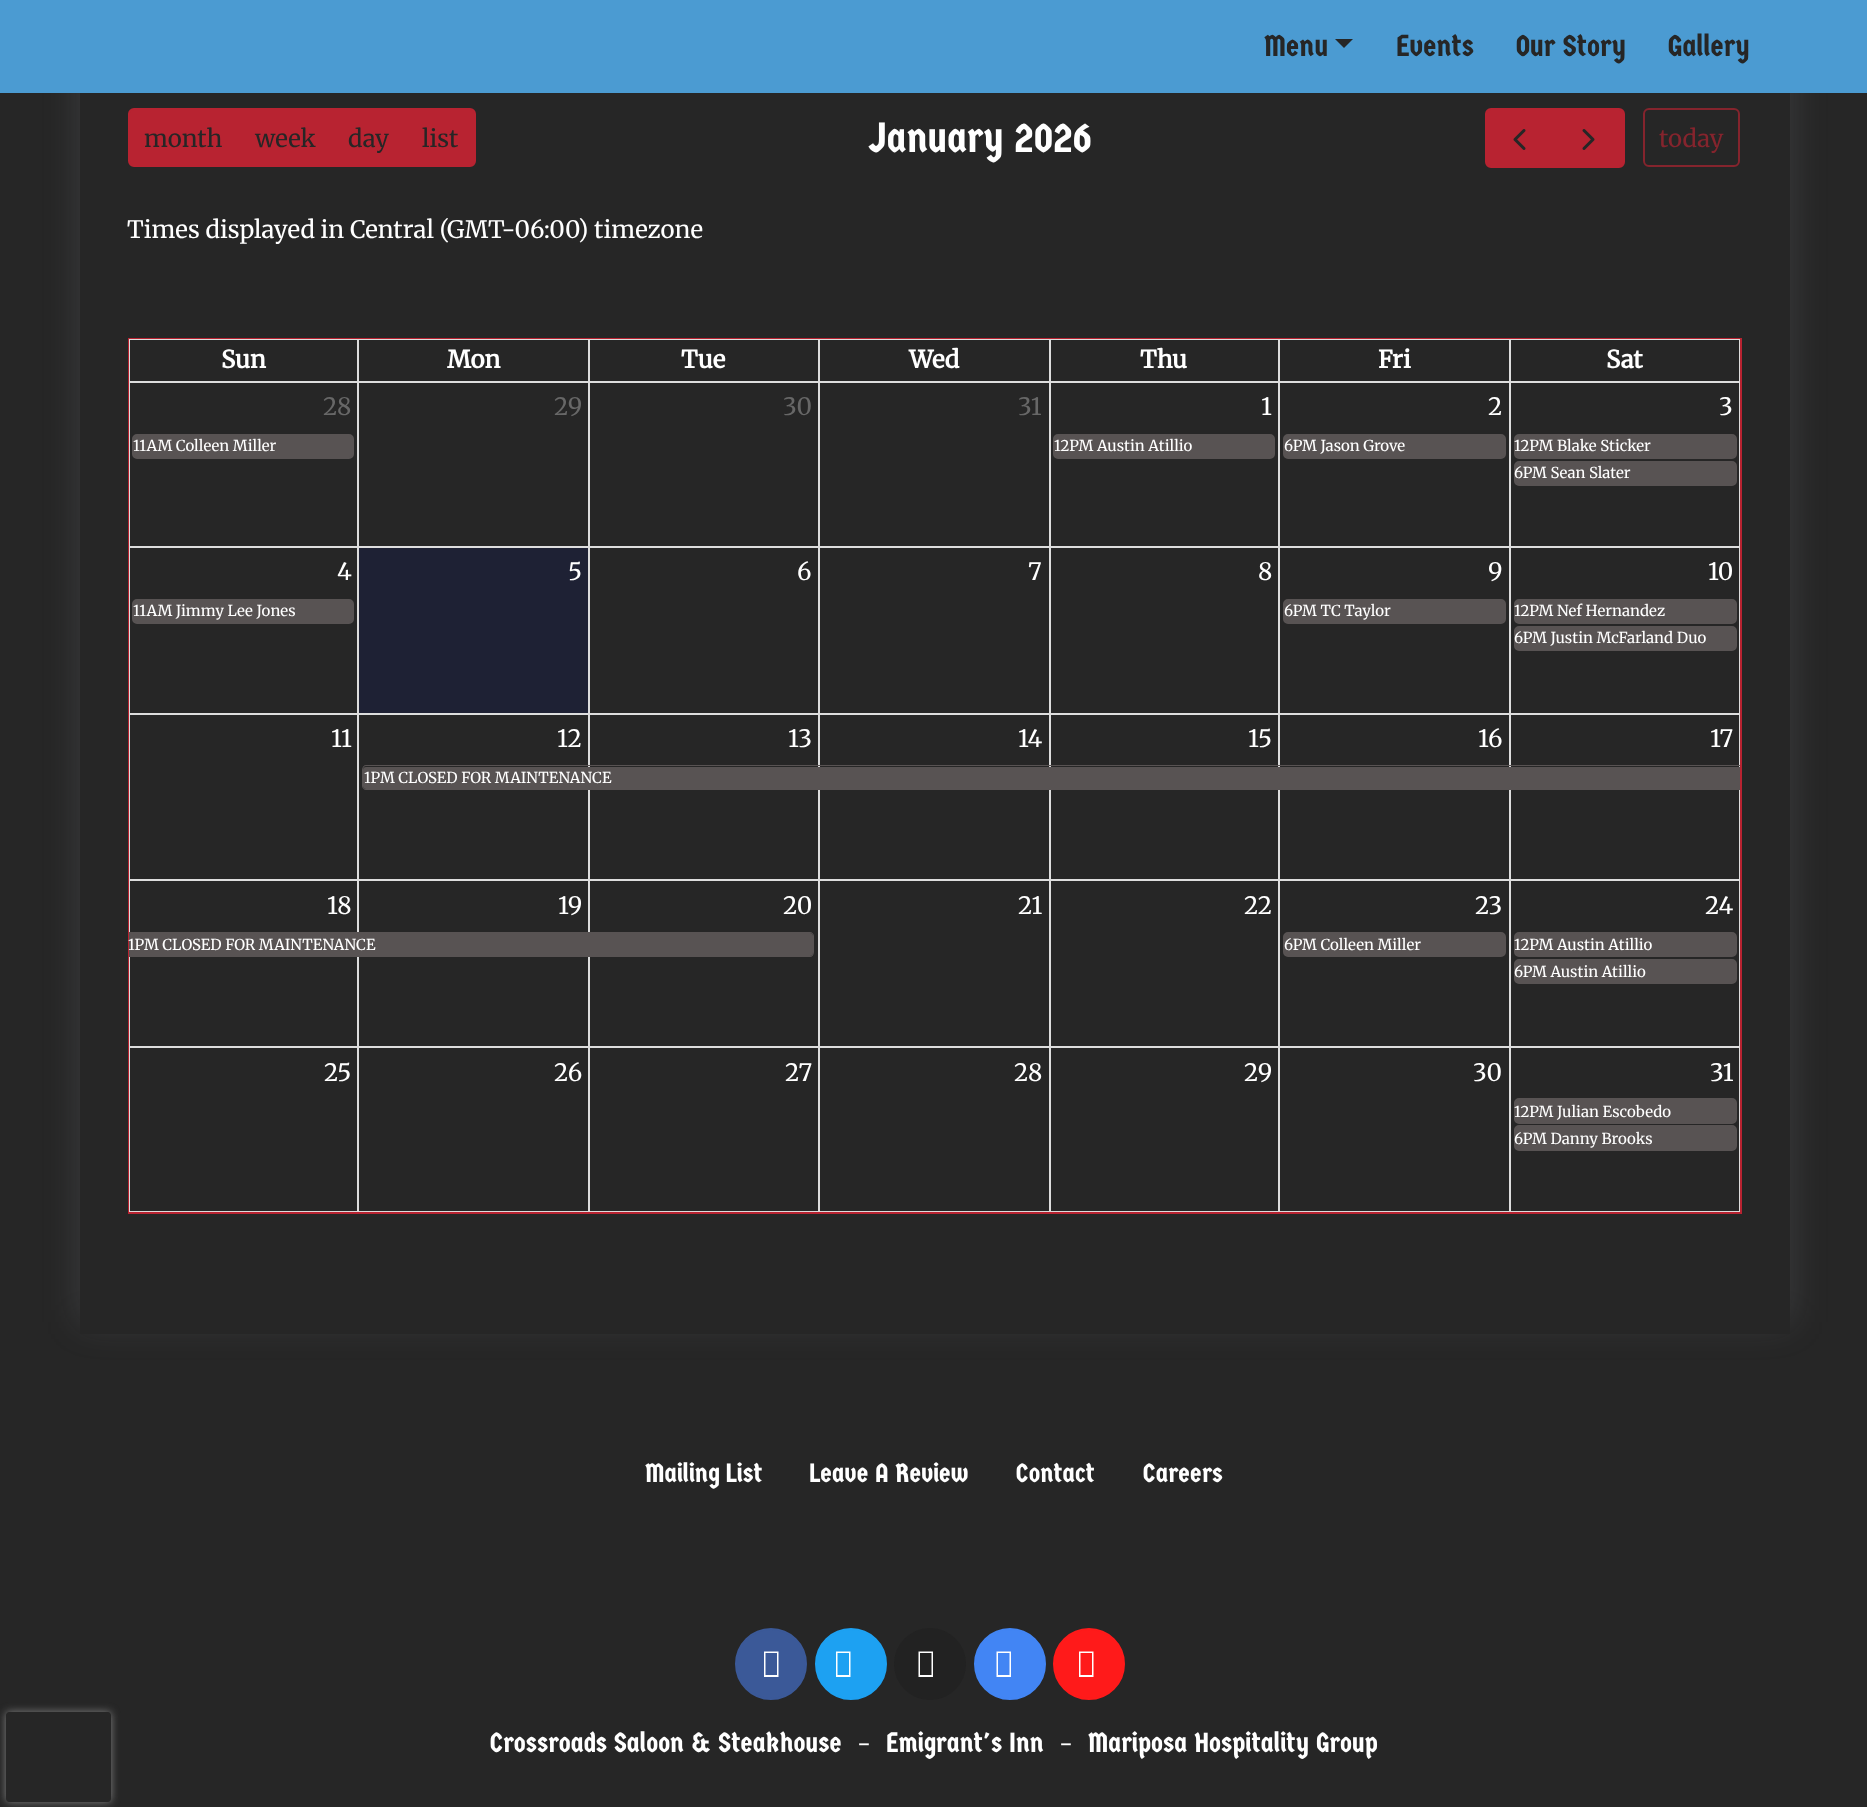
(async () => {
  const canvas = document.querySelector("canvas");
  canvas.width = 1867;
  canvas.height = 1807;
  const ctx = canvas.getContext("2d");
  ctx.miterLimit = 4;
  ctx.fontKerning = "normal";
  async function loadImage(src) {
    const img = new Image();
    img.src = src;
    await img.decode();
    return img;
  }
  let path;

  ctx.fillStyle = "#262626";
  ctx.fillRect(0, 0, 1867, 1807);
  ctx.fillStyle = "rgba(149, 157, 165, 0.2)";
  ctx.filter = "blur(18px)";
  ctx.beginPath();
  ctx.rect(80, -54, 1710, 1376);
  ctx.fill();
  ctx.filter = "none";
  ctx.fillStyle = "#4b9bd2";
  ctx.fillRect(0, 0, 1867, 93);
  ctx.fillStyle = "#262626";
  path = new Path2D("M1335 39H1353L1344 48Z");
  ctx.fill(path);
  ctx.fillRect(80, 93, 1710, 1241);
  ctx.fillStyle = "#b82331";
  ctx.beginPath();
  ctx.roundRect(129, 109, 110, 57, [5, 0, 0, 5]);
  ctx.fill();
  ctx.strokeStyle = "#b82331";
  ctx.lineWidth = 2;
  ctx.stroke();
  ctx.fillRect(240, 108, 165, 59);
  ctx.beginPath();
  ctx.roundRect(406, 109, 69, 57, [0, 5, 5, 0]);
  ctx.fill();
  ctx.stroke();
  ctx.beginPath();
  ctx.roundRect(1486, 109, 69, 58, [5, 0, 0, 5]);
  ctx.fill();
  ctx.stroke();
  ctx.drawImage(await loadImage("img/1.png"), 1513, 129, 13, 21);
  ctx.beginPath();
  ctx.roundRect(1555, 109, 69, 58, [0, 5, 5, 0]);
  ctx.fill();
  ctx.stroke();
  ctx.drawImage(await loadImage("img/2.png"), 1582, 129, 13, 21);
  ctx.beginPath();
  ctx.roundRect(1644, 109, 95, 57, 5);
  ctx.strokeStyle = "#85242d";
  ctx.stroke();
  ctx.strokeStyle = "#b82331";
  ctx.strokeRect(129, 339, 1612, 874);
  for (const [x, y, w, h, color] of [
    [1509, 339, 231, 1, "#dddddd"],
    [1739, 339, 1, 44, "#dddddd"],
    [1509, 381, 231, 2, "#dddddd"],
    [1509, 339, 2, 44, "#dddddd"],
    [1278, 339, 233, 1, "#dddddd"],
    [1278, 381, 233, 2, "#dddddd"],
    [1278, 339, 2, 44, "#dddddd"],
    [1049, 339, 231, 1, "#dddddd"],
    [1049, 381, 231, 2, "#dddddd"],
    [1049, 339, 2, 44, "#dddddd"],
    [818, 339, 232, 1, "#dddddd"],
    [818, 381, 232, 2, "#dddddd"],
    [818, 339, 2, 44, "#dddddd"],
    [588, 339, 231, 1, "#dddddd"],
    [588, 381, 231, 2, "#dddddd"],
    [588, 339, 2, 44, "#dddddd"],
    [357, 339, 233, 1, "#dddddd"],
    [357, 381, 233, 2, "#dddddd"],
    [357, 339, 2, 44, "#dddddd"],
    [129, 339, 230, 1, "#dddddd"],
    [129, 381, 230, 2, "#dddddd"],
    [129, 339, 1, 44, "#dddddd"],
  ]) {
    ctx.fillStyle = color;
    ctx.fillRect(x, y, w, h);
  }
  ctx.fillStyle = "#585353";
  ctx.beginPath();
  ctx.roundRect(133, 435, 220, 23, 4);
  ctx.fill();
  ctx.strokeStyle = "#585353";
  ctx.stroke();
  for (const [x, y, w, h, color] of [
    [1509, 546, 231, 2, "#dddddd"],
    [1509, 713, 231, 2, "#dddddd"],
    [1509, 879, 231, 2, "#dddddd"],
    [1509, 1046, 231, 2, "#dddddd"],
    [1739, 1046, 1, 166, "#dddddd"],
    [1509, 1211, 231, 1, "#dddddd"],
    [1509, 1046, 2, 166, "#dddddd"],
    [1278, 1046, 233, 2, "#dddddd"],
    [1509, 879, 2, 168, "#dddddd"],
    [1278, 879, 233, 2, "#dddddd"],
    [1509, 713, 2, 168, "#dddddd"],
    [1278, 713, 233, 2, "#dddddd"],
    [1509, 546, 2, 168, "#dddddd"],
    [1278, 546, 233, 2, "#dddddd"],
    [1278, 1211, 233, 1, "#dddddd"],
    [1278, 1046, 2, 166, "#dddddd"],
    [1049, 1046, 231, 2, "#dddddd"],
    [1278, 879, 2, 168, "#dddddd"],
    [1049, 879, 231, 2, "#dddddd"],
    [1278, 713, 2, 168, "#dddddd"],
    [1049, 713, 231, 2, "#dddddd"],
    [1278, 546, 2, 168, "#dddddd"],
    [1049, 546, 231, 2, "#dddddd"],
    [1049, 1211, 231, 1, "#dddddd"],
    [1049, 1046, 2, 166, "#dddddd"],
    [818, 1046, 232, 2, "#dddddd"],
    [1049, 879, 2, 168, "#dddddd"],
    [818, 879, 232, 2, "#dddddd"],
    [1049, 713, 2, 168, "#dddddd"],
    [818, 713, 232, 2, "#dddddd"],
    [1049, 546, 2, 168, "#dddddd"],
    [818, 546, 232, 2, "#dddddd"],
    [818, 1211, 232, 1, "#dddddd"],
    [818, 1046, 2, 166, "#dddddd"],
    [588, 1046, 231, 2, "#dddddd"],
    [818, 879, 2, 168, "#dddddd"],
    [588, 879, 231, 2, "#dddddd"],
    [818, 713, 2, 168, "#dddddd"],
    [588, 713, 231, 2, "#dddddd"],
    [818, 546, 2, 168, "#dddddd"],
    [588, 546, 231, 2, "#dddddd"],
    [588, 1211, 231, 1, "#dddddd"],
    [588, 1046, 2, 166, "#dddddd"],
    [357, 1046, 233, 2, "#dddddd"],
    [588, 879, 2, 168, "#dddddd"],
    [357, 879, 233, 2, "#dddddd"],
    [588, 713, 2, 168, "#dddddd"],
    [357, 713, 233, 2, "#dddddd"],
    [588, 546, 2, 168, "#dddddd"],
    [357, 546, 233, 2, "#dddddd"],
    [357, 1211, 233, 1, "#dddddd"],
    [357, 1046, 2, 166, "#dddddd"],
    [129, 1046, 230, 2, "#dddddd"],
    [357, 879, 2, 168, "#dddddd"],
    [129, 879, 230, 2, "#dddddd"],
    [357, 713, 2, 168, "#dddddd"],
    [129, 713, 230, 2, "#dddddd"],
    [357, 546, 2, 168, "#dddddd"],
    [129, 546, 230, 2, "#dddddd"],
    [357, 383, 2, 165, "#dddddd"],
    [588, 383, 2, 165, "#dddddd"],
    [818, 383, 2, 165, "#dddddd"],
    [1049, 383, 2, 165, "#dddddd"],
  ]) {
    ctx.fillStyle = color;
    ctx.fillRect(x, y, w, h);
  }
  ctx.fillStyle = "#585353";
  ctx.beginPath();
  ctx.roundRect(1054, 435, 220, 23, 4);
  ctx.fill();
  ctx.stroke();
  ctx.fillStyle = "#dddddd";
  ctx.fillRect(1278, 383, 2, 165);
  ctx.fillStyle = "#585353";
  ctx.beginPath();
  ctx.roundRect(1284, 435, 221, 23, 4);
  ctx.fill();
  ctx.stroke();
  ctx.fillStyle = "#dddddd";
  ctx.fillRect(1509, 383, 2, 165);
  ctx.fillStyle = "#585353";
  ctx.beginPath();
  ctx.roundRect(1515, 435, 221, 23, 4);
  ctx.fill();
  ctx.stroke();
  ctx.beginPath();
  ctx.roundRect(1515, 462, 221, 23, 4);
  ctx.fill();
  ctx.stroke();
  for (const [x, y, w, h, color] of [
    [129, 1211, 230, 1, "#dddddd"],
    [129, 1046, 1, 166, "#dddddd"],
    [129, 879, 1, 168, "#dddddd"],
    [129, 713, 1, 168, "#dddddd"],
    [129, 383, 1, 331, "#dddddd"],
  ]) {
    ctx.fillStyle = color;
    ctx.fillRect(x, y, w, h);
  }
  ctx.fillStyle = "#585353";
  ctx.beginPath();
  ctx.roundRect(133, 600, 220, 23, 4);
  ctx.fill();
  ctx.stroke();
  ctx.fillStyle = "#1e2134";
  ctx.fillRect(359, 548, 229, 165);
  ctx.fillStyle = "#585353";
  ctx.beginPath();
  ctx.roundRect(1284, 600, 221, 23, 4);
  ctx.fill();
  ctx.stroke();
  for (const [x, y, w, h, color] of [
    [1739, 879, 1, 168, "#dddddd"],
    [1739, 713, 1, 168, "#dddddd"],
    [1739, 383, 1, 331, "#dddddd"],
  ]) {
    ctx.fillStyle = color;
    ctx.fillRect(x, y, w, h);
  }
  ctx.fillStyle = "#585353";
  ctx.beginPath();
  ctx.roundRect(1515, 600, 221, 23, 4);
  ctx.fill();
  ctx.stroke();
  ctx.beginPath();
  ctx.roundRect(1515, 627, 221, 23, 4);
  ctx.fill();
  ctx.stroke();
  ctx.beginPath();
  ctx.roundRect(363, 767, 1377, 22, [3, 0, 0, 3]);
  ctx.fill();
  path = new Path2D("M366 765H1740V790H366C364 790 362 788 362 786V770C362 767 364 765 366 765ZM366 766H1740V789H366C364 789 363 788 363 786V770C363 768 364 766 366 766Z");
  ctx.fill(path, "evenodd");
  ctx.beginPath();
  ctx.roundRect(129, 933, 684, 23, [0, 3, 3, 0]);
  ctx.fill();
  path = new Path2D("M129 932H810C812 932 814 934 814 936V952C814 955 812 957 810 957H129ZM129 933H810C812 933 813 934 813 936V952C813 954 812 956 810 956H129Z");
  ctx.fill(path, "evenodd");
  ctx.beginPath();
  ctx.roundRect(1284, 933, 221, 23, 4);
  ctx.fill();
  ctx.stroke();
  ctx.beginPath();
  ctx.roundRect(1515, 933, 221, 23, 4);
  ctx.fill();
  ctx.stroke();
  ctx.beginPath();
  ctx.roundRect(1515, 960, 221, 23, 4);
  ctx.fill();
  ctx.stroke();
  ctx.beginPath();
  ctx.roundRect(1515, 1099, 221, 24, 4);
  ctx.fill();
  ctx.stroke();
  ctx.beginPath();
  ctx.roundRect(1515, 1126, 221, 24, 4);
  ctx.fill();
  ctx.stroke();
  ctx.save();
  path = new Path2D("M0 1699H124V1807H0ZM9 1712H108C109.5 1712 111 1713.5 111 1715V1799C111 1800.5 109.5 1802 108 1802H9C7.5 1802 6 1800.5 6 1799V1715C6 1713.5 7.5 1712 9 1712Z");
  ctx.clip(path, "evenodd");
  ctx.fillStyle = "#808080";
  ctx.filter = "blur(4px)";
  ctx.beginPath();
  ctx.roundRect(6, 1712, 105, 90, 3);
  ctx.fill();
  ctx.filter = "none";
  ctx.restore();
  ctx.fillStyle = "#3b5998";
  ctx.beginPath();
  ctx.arc(771, 1664, 35, 0, Math.PI * 2);
  ctx.fill();
  ctx.strokeStyle = "#3b5998";
  ctx.stroke();
  ctx.fillStyle = "#ffffff";
  path = new Path2D("M764 1677V1651.5H778.5V1677ZM765.5 1675H777V1653H765.5Z");
  ctx.fill(path);
  ctx.fillStyle = "#1da1f2";
  ctx.beginPath();
  ctx.arc(851, 1664, 35, 0, Math.PI * 2);
  ctx.fill();
  ctx.strokeStyle = "#1da1f2";
  ctx.stroke();
  ctx.fillStyle = "#ffffff";
  path = new Path2D("M836 1677V1651.5H850.5V1677ZM837.5 1675H849V1653H837.5Z");
  ctx.fill(path);
  ctx.fillStyle = "#222222";
  ctx.beginPath();
  ctx.arc(930, 1664, 36, 0, Math.PI * 2);
  ctx.fill();
  ctx.fillStyle = "#ffffff";
  path = new Path2D("M918.5 1677V1651.5H933V1677ZM920 1675H931.5V1653H920Z");
  ctx.fill(path);
  ctx.fillStyle = "#4285f4";
  ctx.beginPath();
  ctx.arc(1010, 1664, 35, 0, Math.PI * 2);
  ctx.fill();
  ctx.strokeStyle = "#4285f4";
  ctx.stroke();
  ctx.fillStyle = "#ffffff";
  path = new Path2D("M996.5 1677V1651.5H1011V1677ZM998 1675H1009.5V1653H998Z");
  ctx.fill(path);
  ctx.fillStyle = "#ff1a1a";
  ctx.beginPath();
  ctx.arc(1089, 1664, 35, 0, Math.PI * 2);
  ctx.fill();
  ctx.strokeStyle = "#ff1a1a";
  ctx.stroke();
  ctx.fillStyle = "#ffffff";
  path = new Path2D("M1079 1677V1651.5H1093.5V1677ZM1080.5 1675H1092V1653H1080.5Z");
  ctx.fill(path);
  ctx.font = "30px Germania One";
  ctx.fillStyle = "#262626";
  for (const [text, x, y] of [
    ["Menu", 1264, 56],
    ["Events", 1396, 56],
    ["Our Story", 1516, 56],
    ["Gallery", 1668, 56],
  ]) {
    ctx.fillText(text, x, y);
  }
  ctx.font = "300 24px Merriweather";
  for (const [text, x, y] of [
    ["month", 144, 147],
    ["week", 255, 147],
    ["day", 348, 147],
    ["list", 422, 147],
  ]) {
    ctx.fillText(text, x, y);
  }
  ctx.font = "42px Germania One";
  ctx.fillStyle = "#ffffff";
  ctx.fillText("January 2026", 868, 152);
  ctx.font = "300 24px Merriweather";
  ctx.fillStyle = "#85242d";
  ctx.fillText("today", 1659, 147);
  ctx.fillStyle = "#ffffff";
  ctx.fillText("Times displayed in Central (GMT-06:00) timezone", 127, 238);
  ctx.font = "bold 24px Merriweather";
  for (const [text, x, y] of [
    ["Sun", 221, 368],
    ["Mon", 447, 368],
    ["Tue", 681, 368],
    ["Wed", 909, 368],
    ["Thu", 1140, 368],
    ["Fri", 1378, 368],
    ["Sat", 1606, 368],
  ]) {
    ctx.fillText(text, x, y);
  }
  ctx.font = "300 24px Merriweather";
  ctx.fillStyle = "#676767";
  ctx.fillText("28", 323, 415);
  ctx.font = "300 15px Merriweather";
  ctx.fillStyle = "#ffffff";
  ctx.fillText("11AM Colleen Miller", 133, 451);
  ctx.font = "300 24px Merriweather";
  ctx.fillStyle = "#676767";
  for (const [text, x, y] of [
    ["29", 554, 415],
    ["30", 783, 415],
    ["31", 1018, 415],
  ]) {
    ctx.fillText(text, x, y);
  }
  ctx.fillStyle = "#ffffff";
  ctx.fillText("1", 1261, 415);
  ctx.font = "300 15px Merriweather";
  ctx.fillText("12PM Austin Atillio", 1054, 451);
  ctx.font = "300 24px Merriweather";
  ctx.fillText("2", 1488, 415);
  ctx.font = "300 15px Merriweather";
  ctx.fillText("6PM Jason Grove", 1284, 451);
  ctx.font = "300 24px Merriweather";
  ctx.fillText("3", 1719, 415);
  ctx.font = "300 15px Merriweather";
  ctx.fillText("12PM Blake Sticker", 1514, 451);
  ctx.fillText("6PM Sean Slater", 1514, 478);
  ctx.font = "300 24px Merriweather";
  ctx.fillText("4", 337, 580);
  ctx.font = "300 15px Merriweather";
  ctx.fillText("11AM Jimmy Lee Jones", 133, 616);
  ctx.font = "300 24px Merriweather";
  for (const [text, x, y] of [
    ["5", 568, 580],
    ["6", 797, 580],
    ["7", 1028, 580],
    ["8", 1258, 580],
    ["9", 1488, 580],
  ]) {
    ctx.fillText(text, x, y);
  }
  ctx.font = "300 15px Merriweather";
  ctx.fillText("6PM TC Taylor", 1284, 616);
  ctx.font = "300 24px Merriweather";
  ctx.fillText("10", 1708, 580);
  ctx.font = "300 15px Merriweather";
  ctx.fillText("12PM Nef Hernandez", 1514, 616);
  ctx.fillText("6PM Justin McFarland Duo", 1514, 643);
  ctx.font = "300 24px Merriweather";
  ctx.fillText("11", 331, 747);
  ctx.fillText("12", 557, 747);
  ctx.font = "300 15px Merriweather";
  ctx.fillText("1PM CLOSED FOR MAINTENANCE", 364, 783);
  ctx.font = "300 24px Merriweather";
  for (const [text, x, y] of [
    ["13", 788, 747],
    ["14", 1018, 747],
    ["15", 1248, 747],
    ["16", 1478, 747],
    ["17", 1710, 747],
    ["18", 327, 914],
  ]) {
    ctx.fillText(text, x, y);
  }
  ctx.font = "300 15px Merriweather";
  ctx.fillText("1PM CLOSED FOR MAINTENANCE", 128, 950);
  ctx.font = "300 24px Merriweather";
  for (const [text, x, y] of [
    ["19", 558, 914],
    ["20", 783, 914],
    ["21", 1018, 914],
    ["22", 1244, 914],
    ["23", 1475, 914],
  ]) {
    ctx.fillText(text, x, y);
  }
  ctx.font = "300 15px Merriweather";
  ctx.fillText("6PM Colleen Miller", 1284, 950);
  ctx.font = "300 24px Merriweather";
  ctx.fillText("24", 1705, 914);
  ctx.font = "300 15px Merriweather";
  ctx.fillText("12PM Austin Atillio", 1514, 950);
  ctx.fillText("6PM Austin Atillio", 1514, 977);
  ctx.font = "300 24px Merriweather";
  for (const [text, x, y] of [
    ["25", 324, 1081],
    ["26", 554, 1081],
    ["27", 785, 1081],
    ["28", 1014, 1081],
    ["29", 1244, 1081],
    ["30", 1473, 1081],
    ["31", 1710, 1081],
  ]) {
    ctx.fillText(text, x, y);
  }
  ctx.font = "300 15px Merriweather";
  ctx.fillText("12PM Julian Escobedo", 1514, 1117);
  ctx.fillText("6PM Danny Brooks", 1514, 1144);
  ctx.font = "26.5px Germania One";
  for (const [text, x, y] of [
    ["Mailing List", 645, 1482],
    ["Leave A Review", 810, 1482],
    ["Contact", 1016, 1482],
    ["Careers", 1143, 1482],
  ]) {
    ctx.fillText(text, x, y);
  }
  ctx.font = "27.6px Germania One";
  ctx.fillText("Crossroads Saloon & Steakhouse", 490, 1752);
  ctx.font = "300 24px Merriweather";
  ctx.fillText("-", 857, 1752);
  ctx.font = "27.6px Germania One";
  ctx.fillText("Emigrant's Inn", 886, 1752);
  ctx.font = "300 24px Merriweather";
  ctx.fillText("-", 1059, 1752);
  ctx.font = "27.6px Germania One";
  ctx.fillText("Mariposa Hospitality Group", 1088, 1752);
})();
